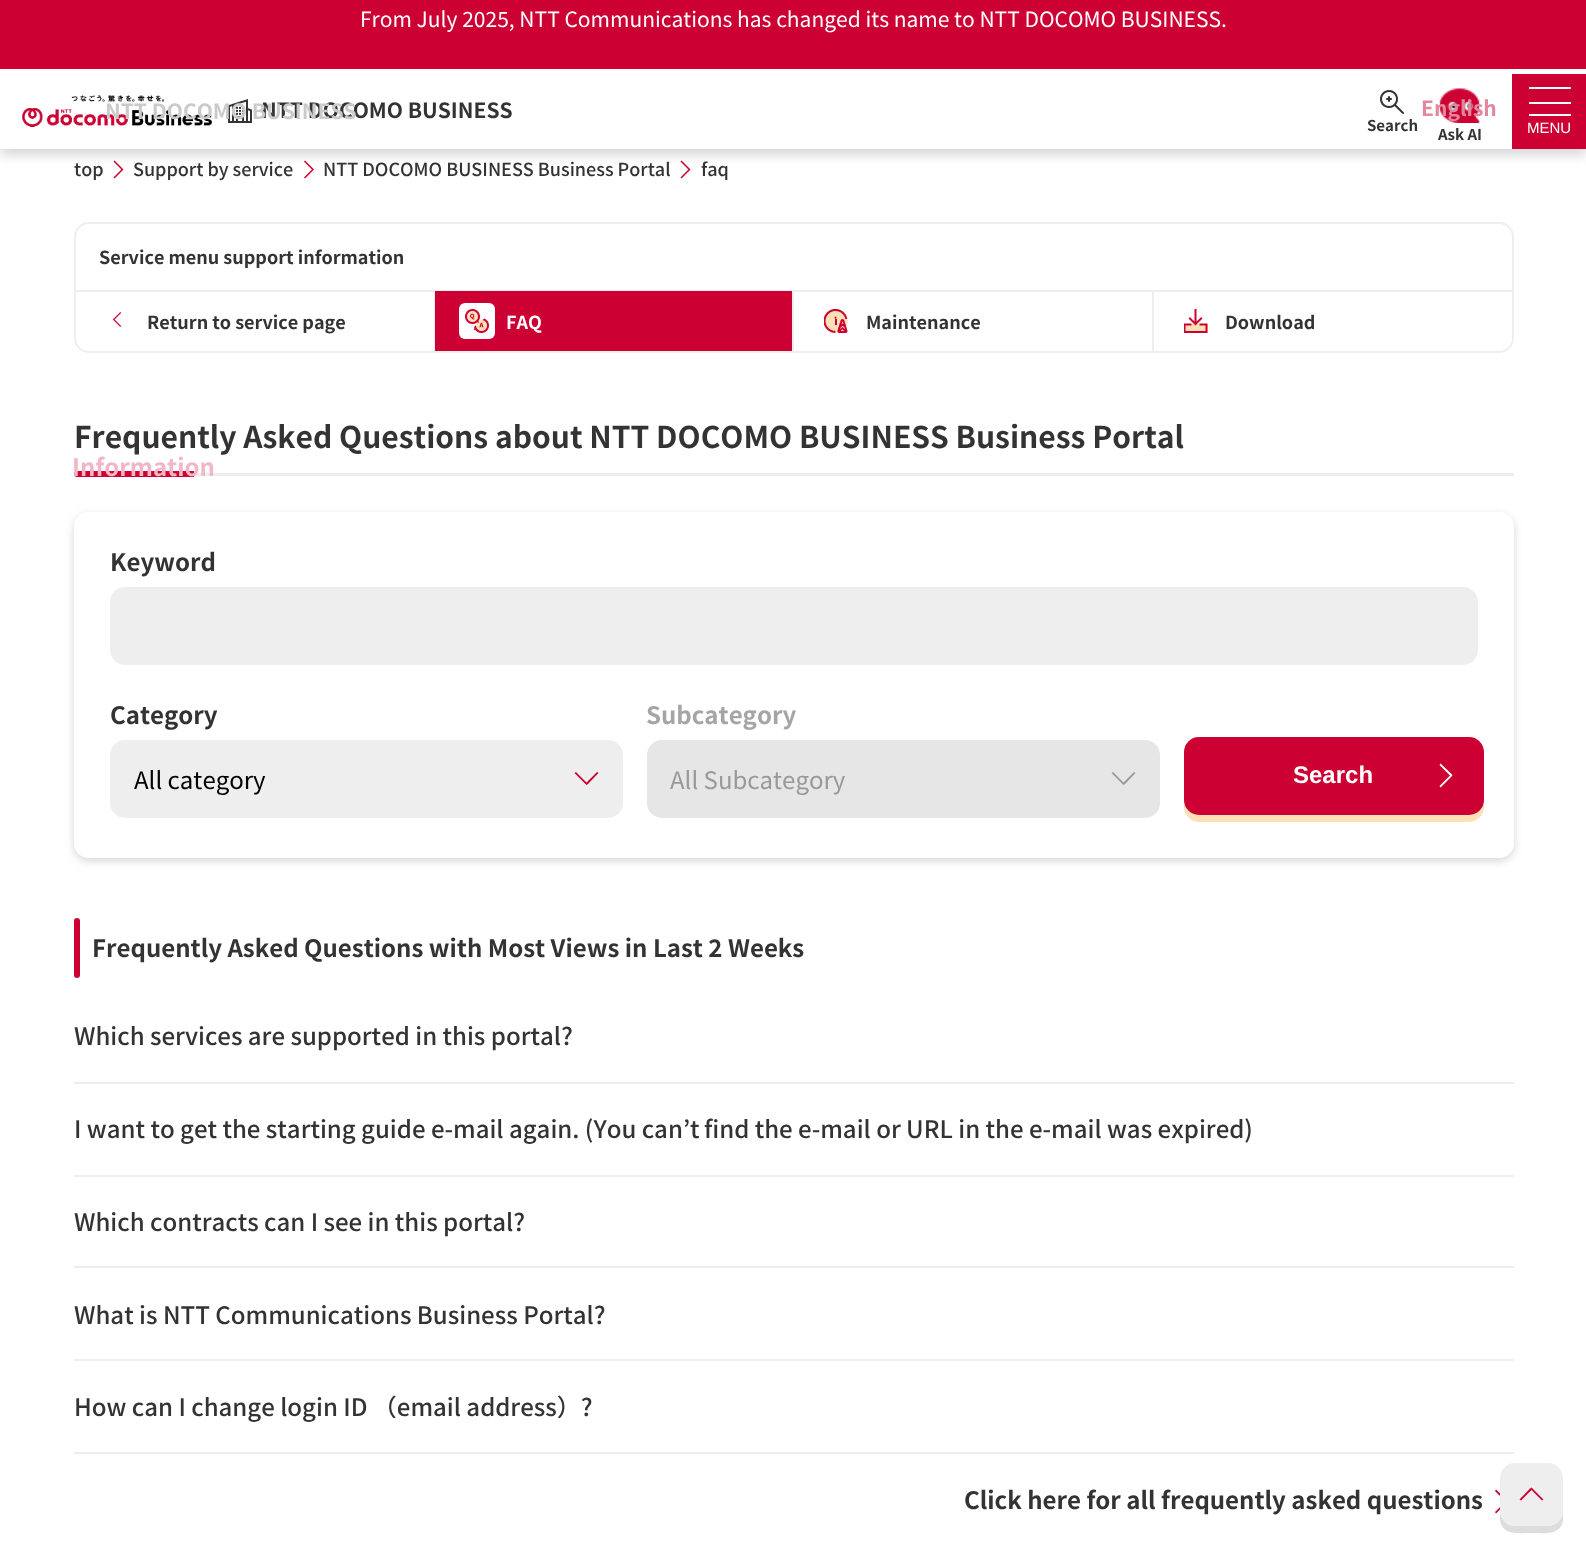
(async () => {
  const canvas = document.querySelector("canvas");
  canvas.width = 1586;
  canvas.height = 1549;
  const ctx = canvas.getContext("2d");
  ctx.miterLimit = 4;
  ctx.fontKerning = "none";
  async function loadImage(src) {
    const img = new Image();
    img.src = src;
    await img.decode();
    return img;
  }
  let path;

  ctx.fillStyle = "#ffffff";
  ctx.fillRect(0, 0, 1586, 1549);
  ctx.drawImage(await loadImage("img/5.png"), 113, 160, 11, 19);
  ctx.drawImage(await loadImage("img/6.png"), 304, 160, 10, 19);
  ctx.drawImage(await loadImage("img/5.png"), 680, 160, 11, 19);
  ctx.fillStyle = "rgba(0, 0, 0, 0.16)";
  ctx.filter = "blur(6px)";
  ctx.beginPath();
  ctx.rect(0, 6, 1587, 149);
  ctx.fill();
  ctx.filter = "none";
  ctx.fillStyle = "#ffffff";
  ctx.fillRect(0, 69, 1586, 80);
  ctx.fillStyle = "#cc0033";
  ctx.fillRect(0, 0, 1586, 69);
  ctx.drawImage(await loadImage("img/1.png"), 22, 95, 190, 32);
  ctx.drawImage(await loadImage("img/2.png"), 228, 99, 24, 24);
  ctx.drawImage(await loadImage("img/3.png"), 1380, 90, 24, 24);
  ctx.drawImage(await loadImage("img/4.png"), 1439, 88, 41, 35);
  for (const [x, y, w, h, color] of [
    [1512, 74, 74, 75, "#cc0033"],
    [1529, 87, 42, 2, "#ffffff"],
    [1529, 102, 42, 2, "#ffffff"],
    [1529, 114, 42, 2, "#ffffff"],
  ]) {
    ctx.fillStyle = color;
    ctx.fillRect(x, y, w, h);
  }
  ctx.beginPath();
  ctx.roundRect(75, 223, 1438, 129, 14);
  ctx.strokeStyle = "#eeeeee";
  ctx.lineWidth = 2;
  ctx.stroke();
  ctx.fillStyle = "#eeeeee";
  ctx.fillRect(75, 290, 1437, 2);
  ctx.fillRect(434, 291, 1, 60);
  ctx.drawImage(await loadImage("img/7.png"), 112, 312, 10, 15);
  ctx.fillRect(792, 291, 2, 60);
  ctx.fillStyle = "#cc0033";
  ctx.fillRect(435, 291, 357, 60);
  ctx.fillStyle = "#ffffff";
  ctx.beginPath();
  ctx.roundRect(459, 303, 36, 36, 6);
  ctx.fill();
  ctx.drawImage(await loadImage("img/8.png"), 465, 309, 24, 24);
  ctx.fillStyle = "#eeeeee";
  ctx.fillRect(1152, 291, 2, 60);
  ctx.drawImage(await loadImage("img/9.png"), 824, 309, 24, 24);
  ctx.drawImage(await loadImage("img/10.png"), 1184, 309, 24, 24);
  ctx.fillRect(74, 473, 1440, 3);
  ctx.fillStyle = "#cc0033";
  ctx.beginPath();
  ctx.roundRect(74, 471, 120, 6, [3, 0, 0, 3]);
  ctx.fill();
  ctx.save();
  path = new Path2D("M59 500H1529V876H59ZM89 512H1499C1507.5 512 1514 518.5 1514 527V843C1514 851.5 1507.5 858 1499 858H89C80.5 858 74 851.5 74 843V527C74 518.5 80.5 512 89 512Z");
  ctx.clip(path, "evenodd");
  ctx.fillStyle = "rgba(0, 0, 0, 0.16)";
  ctx.filter = "blur(4.5px)";
  ctx.beginPath();
  ctx.roundRect(74, 515, 1440, 346, 15);
  ctx.fill();
  ctx.filter = "none";
  ctx.restore();
  ctx.fillStyle = "#eeeeee";
  ctx.beginPath();
  ctx.roundRect(110, 587, 1368, 78, 15);
  ctx.fill();
  ctx.beginPath();
  ctx.roundRect(110, 740, 513, 78, 15);
  ctx.fill();
  ctx.fillStyle = "#cc0033";
  path = new Path2D("M588 784L598.5 773L597 772L586.5 782.5L576 772L574.5 773L586.5 785Z");
  ctx.fill(path);
  ctx.fillStyle = "#e6e6e6";
  ctx.beginPath();
  ctx.roundRect(647, 740, 513, 78, 15);
  ctx.fill();
  ctx.fillStyle = "#999999";
  path = new Path2D("M1125 784L1135.5 773L1134 772L1123.5 782.5L1113 772L1111.5 773L1123.5 785Z");
  ctx.fill(path);
  ctx.fillStyle = "#ffe0b6";
  path = new Path2D("M1184 803V807C1184 815 1191 822 1199 822H1469C1477 822 1484 815 1484 807V759V755V800C1484 808 1477 814 1468 814H1198C1192 814 1186 810 1184 803Z");
  ctx.fill(path);
  ctx.fillStyle = "#cc0033";
  ctx.beginPath();
  ctx.roundRect(1185, 738, 298, 76, 14);
  ctx.fill();
  ctx.strokeStyle = "#cc0033";
  ctx.stroke();
  ctx.fillStyle = "#ffffff";
  path = new Path2D("M1451.5 774L1440.5 763.5L1439.5 765L1450 775.5L1439.5 786L1440.5 787.5L1452.5 775.5Z");
  ctx.fill(path);
  ctx.fillStyle = "#cc0033";
  ctx.beginPath();
  ctx.roundRect(74, 918, 6, 60, 3);
  ctx.fill();
  for (const [x, y, w, h, color] of [
    [74, 1082, 1440, 2, "#eeeeee"],
    [74, 1175, 1440, 2, "#eeeeee"],
    [74, 1266, 1440, 2, "#eeeeee"],
    [74, 1359, 1440, 2, "#eeeeee"],
    [74, 1452, 1440, 2, "#eeeeee"],
  ]) {
    ctx.fillStyle = color;
    ctx.fillRect(x, y, w, h);
  }
  ctx.fillStyle = "#cc0033";
  path = new Path2D("M1507 1500L1496 1489.5L1495 1491L1505.5 1501.5L1495 1512L1496 1513.5L1508 1501.5Z");
  ctx.fill(path);
  ctx.fillStyle = "#dddddd";
  path = new Path2D("M1500 1510V1521C1503 1536 1520 1533 1532 1533C1543 1533 1560 1536 1563 1521V1510C1563 1519 1556 1526 1548 1526H1515C1507 1526 1500 1519 1500 1510Z");
  ctx.fill(path);
  ctx.fillStyle = "#eeeeee";
  ctx.beginPath();
  ctx.roundRect(1501, 1464, 61, 61, 14);
  ctx.fill();
  ctx.strokeStyle = "#eeeeee";
  ctx.stroke();
  ctx.fillStyle = "#cc0033";
  path = new Path2D("M1530 1488.5L1519.5 1499.5L1521 1500.5L1531.5 1490L1542 1500.5L1543.5 1499.5L1531.5 1487.5Z");
  ctx.fill(path);
  ctx.font = "21px Noto Sans JP";
  ctx.fillStyle = "#ffffff";
  ctx.fillText("From July 2025, NTT Communications has changed its name to NTT DOCOMO BUSINESS.", 360, 27);
  ctx.font = "bold 21px Noto Sans JP";
  ctx.fillStyle = "#e2889e";
  ctx.fillText("English", 1421, 116);
  ctx.font = "bold 24px Noto Sans JP";
  ctx.fillStyle = "#f0b7c6";
  ctx.fillText("Information", 72, 476);
  ctx.font = "bold 21px Noto Sans JP";
  ctx.fillStyle = "#333333";
  ctx.fillText("NTT DOCOMO BUSINESS", 261, 118);
  ctx.fillStyle = "#ccc9ca";
  ctx.fillText("NTT DOCOMO BUSINESS", 105, 119);
  ctx.font = "bold 15px Noto Sans JP";
  ctx.fillStyle = "#333333";
  ctx.fillText("Search", 1367, 131);
  ctx.fillText("Ask AI", 1438, 140);
  ctx.font = "15px Liberation Sans";
  ctx.fillStyle = "#ffffff";
  ctx.fillText("MENU", 1527, 133);
  ctx.font = "500 18px Noto Sans JP";
  ctx.fillStyle = "#333333";
  for (const [text, x, y] of [
    ["top", 74, 176],
    ["Support by service", 133, 176],
    ["NTT DOCOMO BUSINESS Business Portal", 323, 176],
    ["faq", 701, 176],
  ]) {
    ctx.fillText(text, x, y);
  }
  ctx.font = "bold 18px Noto Sans JP";
  ctx.fillText("Service menu support information", 99, 264);
  ctx.fillText("Return to service page", 147, 329);
  ctx.fillStyle = "#ffffff";
  ctx.fillText("FAQ", 506, 329);
  ctx.fillStyle = "#333333";
  ctx.fillText("Maintenance", 866, 329);
  ctx.fillText("Download", 1225, 329);
  ctx.font = "bold 30px Noto Sans JP";
  ctx.fillText("Frequently Asked Questions about NTT DOCOMO BUSINESS Business Portal", 74, 448);
  ctx.font = "bold 24px Noto Sans JP";
  ctx.fillText("Keyword", 110, 571);
  ctx.fillText("Category", 110, 724);
  ctx.font = "24px Noto Sans JP";
  ctx.fillStyle = "#000000";
  ctx.fillText("All category", 134, 789);
  ctx.font = "bold 24px Noto Sans JP";
  ctx.fillStyle = "#a5a5a5";
  ctx.fillText("Subcategory", 646, 724);
  ctx.font = "24px Noto Sans JP";
  ctx.fillStyle = "#999999";
  ctx.fillText("All Subcategory", 670, 789);
  ctx.font = "bold 24px Liberation Sans";
  ctx.fillStyle = "#ffffff";
  ctx.fillText("Search", 1293, 783);
  ctx.font = "bold 24px Noto Sans JP";
  ctx.fillStyle = "#333333";
  ctx.fillText("Frequently Asked Questions with Most Views in Last 2 Weeks", 92, 957);
  ctx.font = "500 24px Noto Sans JP";
  for (const [text, x, y] of [
    ["Which services are supported in this portal?", 74, 1045],
    ["I want to get the starting guide e-mail again. (You can’t", 74, 1138],
    ["find the e-mail or URL in the e-mail was expired)", 704, 1138],
    ["Which contracts can I see in this portal?", 74, 1231],
    ["What is NTT Communications Business Portal?", 74, 1324],
    ["How can I change login ID （email address）?", 74, 1416],
  ]) {
    ctx.fillText(text, x, y);
  }
  ctx.font = "bold 24px Noto Sans JP";
  ctx.fillText("Click here for all frequently asked questions", 964, 1509);
})();
